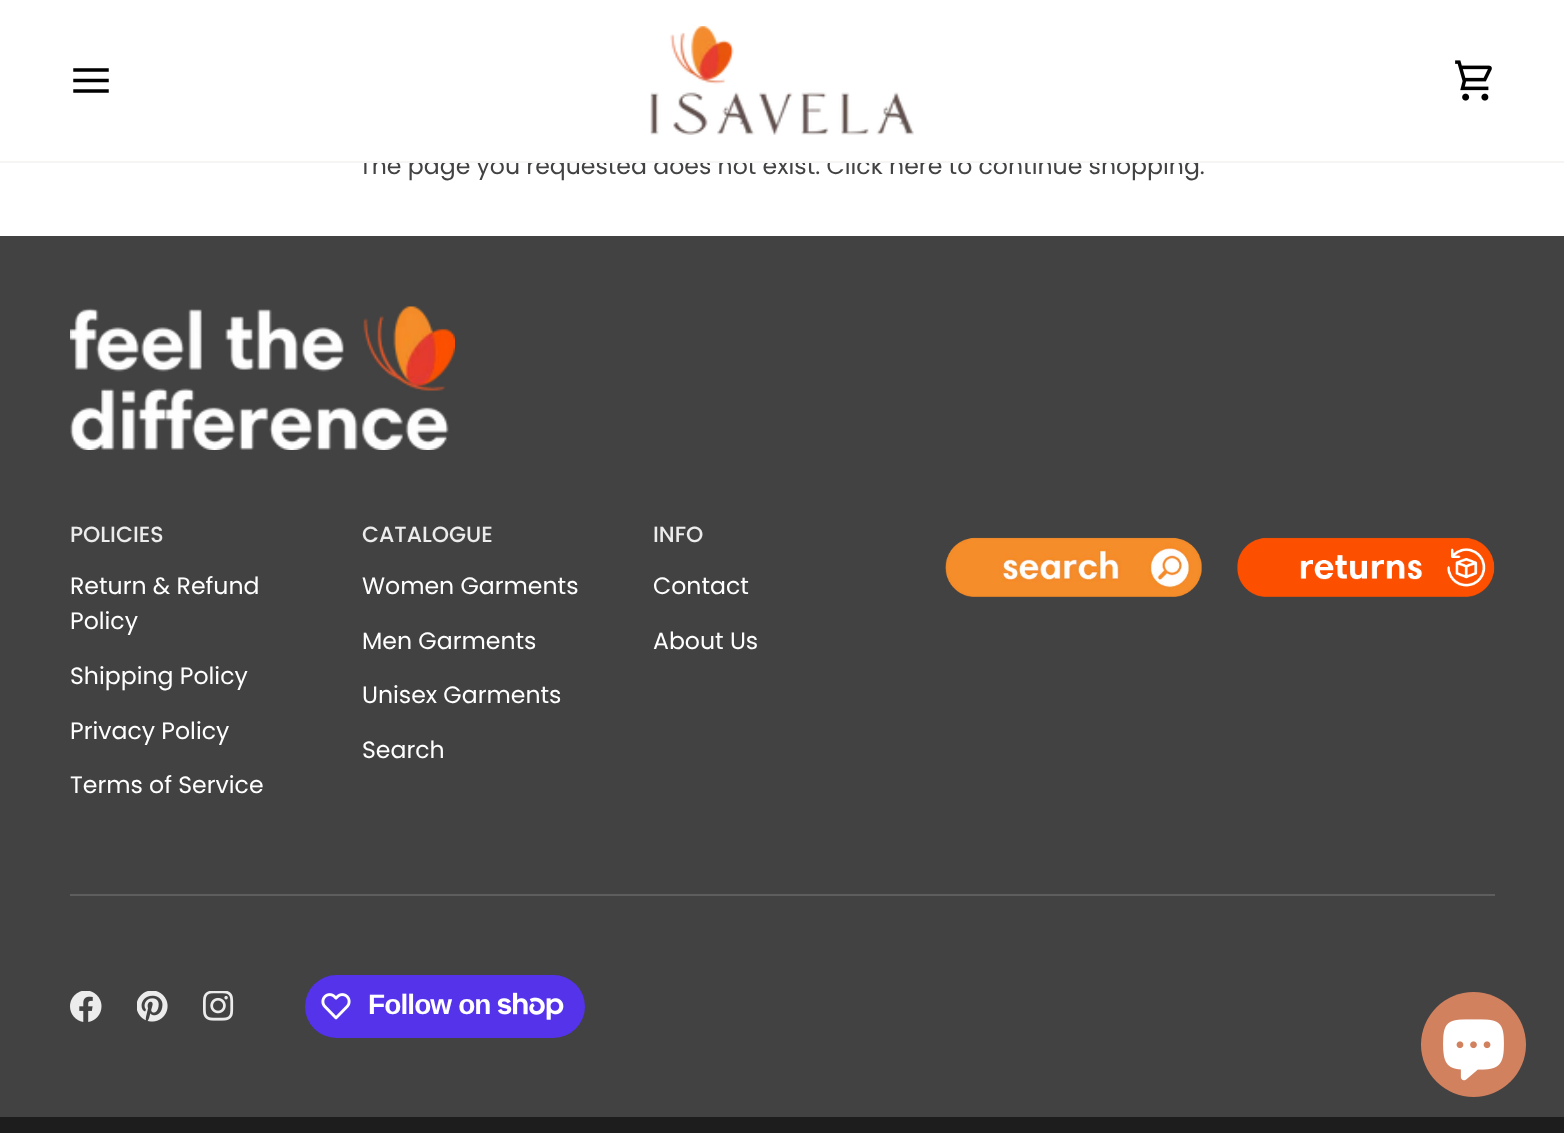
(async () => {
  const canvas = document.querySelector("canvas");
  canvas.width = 1564;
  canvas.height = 1133;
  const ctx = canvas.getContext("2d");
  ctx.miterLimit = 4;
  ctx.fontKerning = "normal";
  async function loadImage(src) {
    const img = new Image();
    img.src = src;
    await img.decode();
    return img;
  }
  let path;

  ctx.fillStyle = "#ffffff";
  ctx.fillRect(0, 0, 1564, 1133);
  path = new Path2D("M107 70H75M107 80.5H75M107 91H75");
  ctx.strokeStyle = "#000000";
  ctx.lineWidth = 3.5;
  ctx.lineCap = "square";
  ctx.stroke(path);
  ctx.drawImage(await loadImage("img/1.png"), 650, 26, 264, 109);
  ctx.drawImage(await loadImage("img/2.png"), 1455, 60, 37, 41);
  ctx.fillStyle = "#424242";
  ctx.fillRect(0, 236, 1564, 881);
  ctx.drawImage(await loadImage("img/3.png"), 70, 306, 385, 144);
  ctx.drawImage(await loadImage("img/4.png"), 945, 537, 257, 60);
  ctx.drawImage(await loadImage("img/5.png"), 1237, 537, 258, 60);
  ctx.fillStyle = "#5e5e5e";
  ctx.fillRect(70, 894, 1425, 2);
  ctx.drawImage(await loadImage("img/6.png"), 70, 991, 32, 31);
  ctx.drawImage(await loadImage("img/7.png"), 137, 991, 31, 31);
  ctx.drawImage(await loadImage("img/8.png"), 203, 991, 31, 30);
  ctx.fillStyle = "#5433eb";
  ctx.beginPath();
  ctx.roundRect(305, 975, 280, 63, 31.5);
  ctx.fill();
  ctx.drawImage(await loadImage("img/9.png"), 321, 993, 30, 27);
  ctx.drawImage(await loadImage("img/10.png"), 497, 992, 67, 28);
  ctx.fillStyle = "#d2815f";
  ctx.beginPath();
  ctx.arc(1473.5, 1044.5, 52.5, 0, Math.PI * 2);
  ctx.fill();
  ctx.drawImage(await loadImage("img/11.png"), 1443, 1019, 61, 62);
  ctx.fillStyle = "#1d1d1d";
  ctx.fillRect(0, 1117, 1564, 16);
  ctx.font = "23.6px Poppins";
  ctx.fillStyle = "#424242";
  ctx.fillText("The page you requested does not exist. Click here to continue shopping.", 359, 174);
  ctx.fillStyle = "#ffffff";
  ctx.fillRect(359, 156, 834, 5);
  ctx.fillStyle = "#f7f5f4";
  ctx.fillRect(0, 161, 1564, 2);
  ctx.font = "500 22px Poppins";
  ctx.fillStyle = "#ececec";
  ctx.fillText("POLICIES", 70, 542);
  ctx.font = "23.6px Poppins";
  ctx.fillStyle = "#ffffff";
  for (const [text, x, y] of [
    ["Return & Refund", 70, 594],
    ["Policy", 70, 629],
    ["Shipping Policy", 70, 684],
    ["Privacy Policy", 70, 739],
    ["Terms of Service", 70, 793],
  ]) {
    ctx.fillText(text, x, y);
  }
  ctx.font = "500 22px Poppins";
  ctx.fillStyle = "#ececec";
  ctx.fillText("CATALOGUE", 362, 542);
  ctx.font = "23.6px Poppins";
  ctx.fillStyle = "#ffffff";
  for (const [text, x, y] of [
    ["Women Garments", 362, 594],
    ["Men Garments", 362, 649],
    ["Unisex Garments", 362, 703],
    ["Search", 362, 758],
  ]) {
    ctx.fillText(text, x, y);
  }
  ctx.font = "500 22px Poppins";
  ctx.fillStyle = "#ececec";
  ctx.fillText("INFO", 653, 542);
  ctx.font = "23.6px Poppins";
  ctx.fillStyle = "#ffffff";
  ctx.fillText("Contact", 653, 594);
  ctx.fillText("About Us", 653, 649);
  ctx.letterSpacing = "-0.9px";
  ctx.font = "bold 28px Liberation Sans";
  ctx.fillText("Follow on", 368, 1014);
})();
